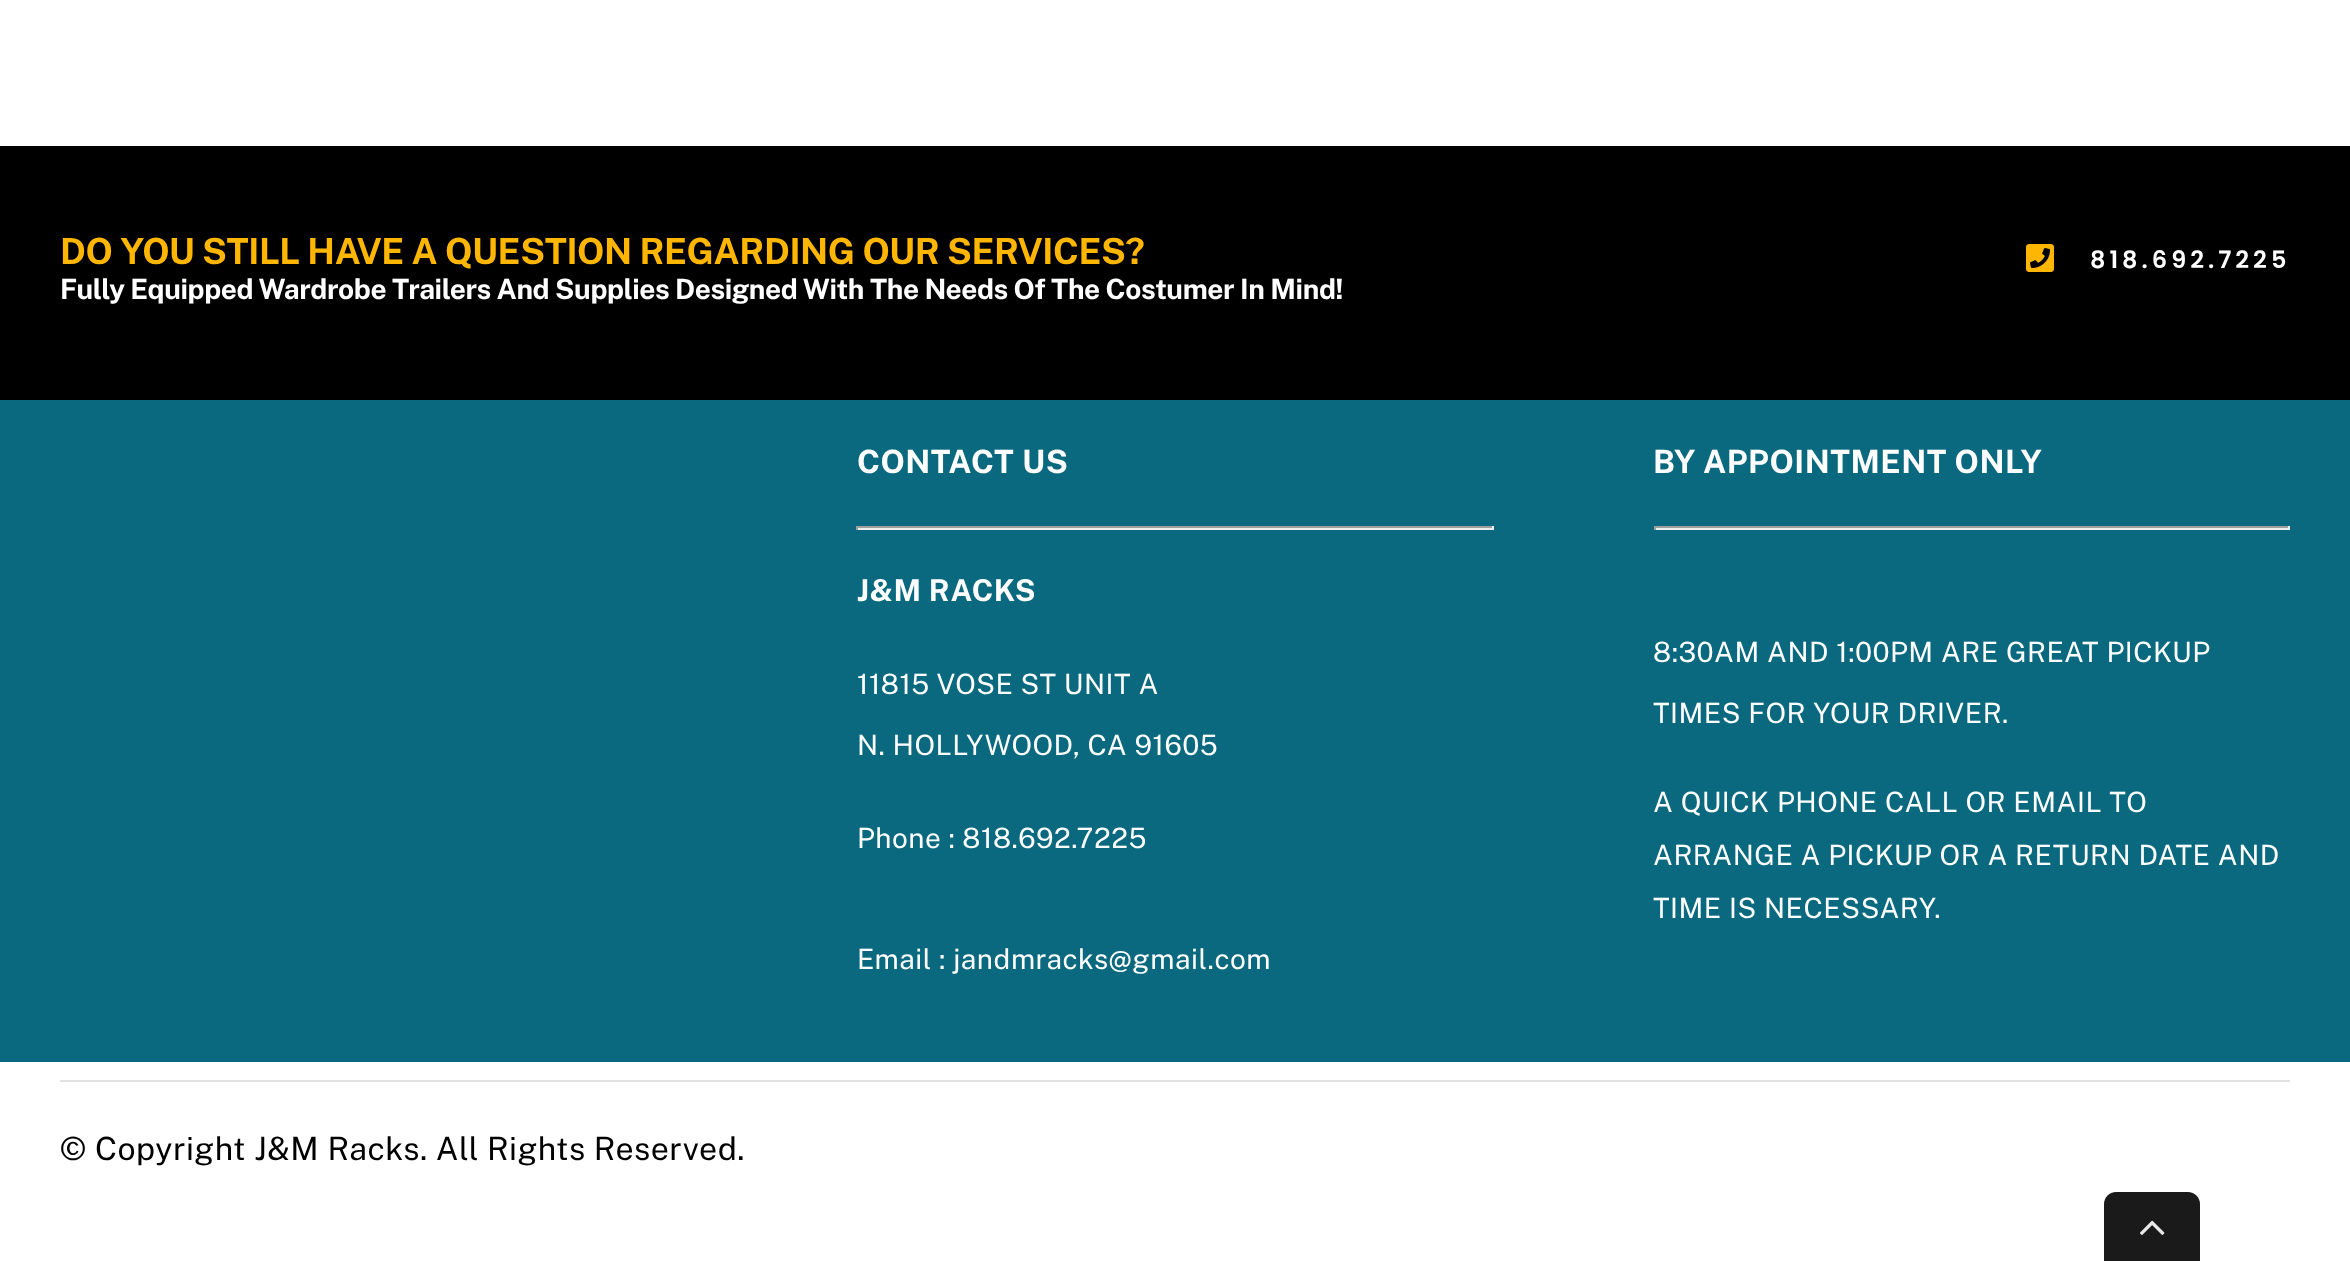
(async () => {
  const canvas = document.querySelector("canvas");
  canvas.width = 2350;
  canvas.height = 1261;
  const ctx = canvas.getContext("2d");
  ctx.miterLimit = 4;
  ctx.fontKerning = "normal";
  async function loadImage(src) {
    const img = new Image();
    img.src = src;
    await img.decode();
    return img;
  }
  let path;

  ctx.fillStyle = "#ffffff";
  ctx.fillRect(0, 0, 2350, 1261);
  ctx.fillStyle = "#000000";
  ctx.fillRect(0, 146, 2350, 254);
  ctx.drawImage(await loadImage("img/1.png"), 2026, 244, 28, 28);
  for (const [x, y, w, h, color] of [
    [0, 400, 2350, 662, "#0a697f"],
    [856, 526, 638, 2, "#9f9f9f"],
    [1492, 526, 2, 4, "#eeeeee"],
    [856, 528, 638, 2, "#eeeeee"],
    [856, 526, 2, 4, "#9f9f9f"],
    [1654, 526, 636, 2, "#9f9f9f"],
    [2288, 526, 2, 4, "#eeeeee"],
    [1654, 528, 636, 2, "#eeeeee"],
    [1654, 526, 2, 4, "#9f9f9f"],
    [60, 1080, 2230, 2, "#e2e2e2"],
  ]) {
    ctx.fillStyle = color;
    ctx.fillRect(x, y, w, h);
  }
  ctx.fillStyle = "#1a1a1a";
  path = new Path2D("M2116 1192H2188C2194.5 1192 2200 1197.5 2200 1204V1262H2104V1204C2104 1197.5 2109.5 1192 2116 1192Z");
  ctx.fill(path);
  ctx.drawImage(await loadImage("img/2.png"), 2140, 1220, 25, 15);
  ctx.letterSpacing = "-0.42px";
  ctx.font = "bold 36px Public Sans";
  ctx.fillStyle = "#ffb600";
  ctx.fillText("DO YOU STILL HAVE A QUESTION REGARDING OUR SERVICES?", 60, 264);
  ctx.font = "bold 28px Public Sans";
  ctx.fillStyle = "#ffffff";
  ctx.fillText("Fully Equipped Wardrobe Trailers And Supplies Designed With The Needs Of The Costumer In Mind!", 60, 299);
  ctx.letterSpacing = "4px";
  ctx.font = "600 24px Poppins";
  ctx.fillText("818.692.7225", 2090, 268);
  ctx.letterSpacing = "0.5px";
  ctx.font = "bold 32px Public Sans";
  ctx.fillText("CONTACT US", 857, 473);
  ctx.font = "bold 30px Public Sans";
  ctx.fillText("J&M RACKS", 857, 601);
  ctx.font = "28px Public Sans";
  for (const [text, x, y] of [
    ["11815 VOSE ST UNIT A", 857, 694],
    ["N. HOLLYWOOD, CA 91605", 857, 755],
    ["Phone : 818.692.7225", 857, 848],
    ["Email : jandmracks@gmail.com", 857, 969],
  ]) {
    ctx.fillText(text, x, y);
  }
  ctx.font = "bold 32px Public Sans";
  ctx.fillText("BY APPOINTMENT ONLY", 1653, 473);
  ctx.font = "28px Public Sans";
  for (const [text, x, y] of [
    ["8:30AM AND 1:00PM ARE GREAT PICKUP", 1653, 662],
    ["TIMES FOR YOUR DRIVER.", 1653, 723],
    ["A QUICK PHONE CALL OR EMAIL TO", 1653, 812],
    ["ARRANGE A PICKUP OR A RETURN DATE AND", 1653, 865],
    ["TIME IS NECESSARY.", 1653, 918],
  ]) {
    ctx.fillText(text, x, y);
  }
  ctx.font = "32px Public Sans";
  ctx.fillStyle = "#000000";
  ctx.fillText("© Copyright J&M Racks. All Rights Reserved.", 60, 1160);
})();
